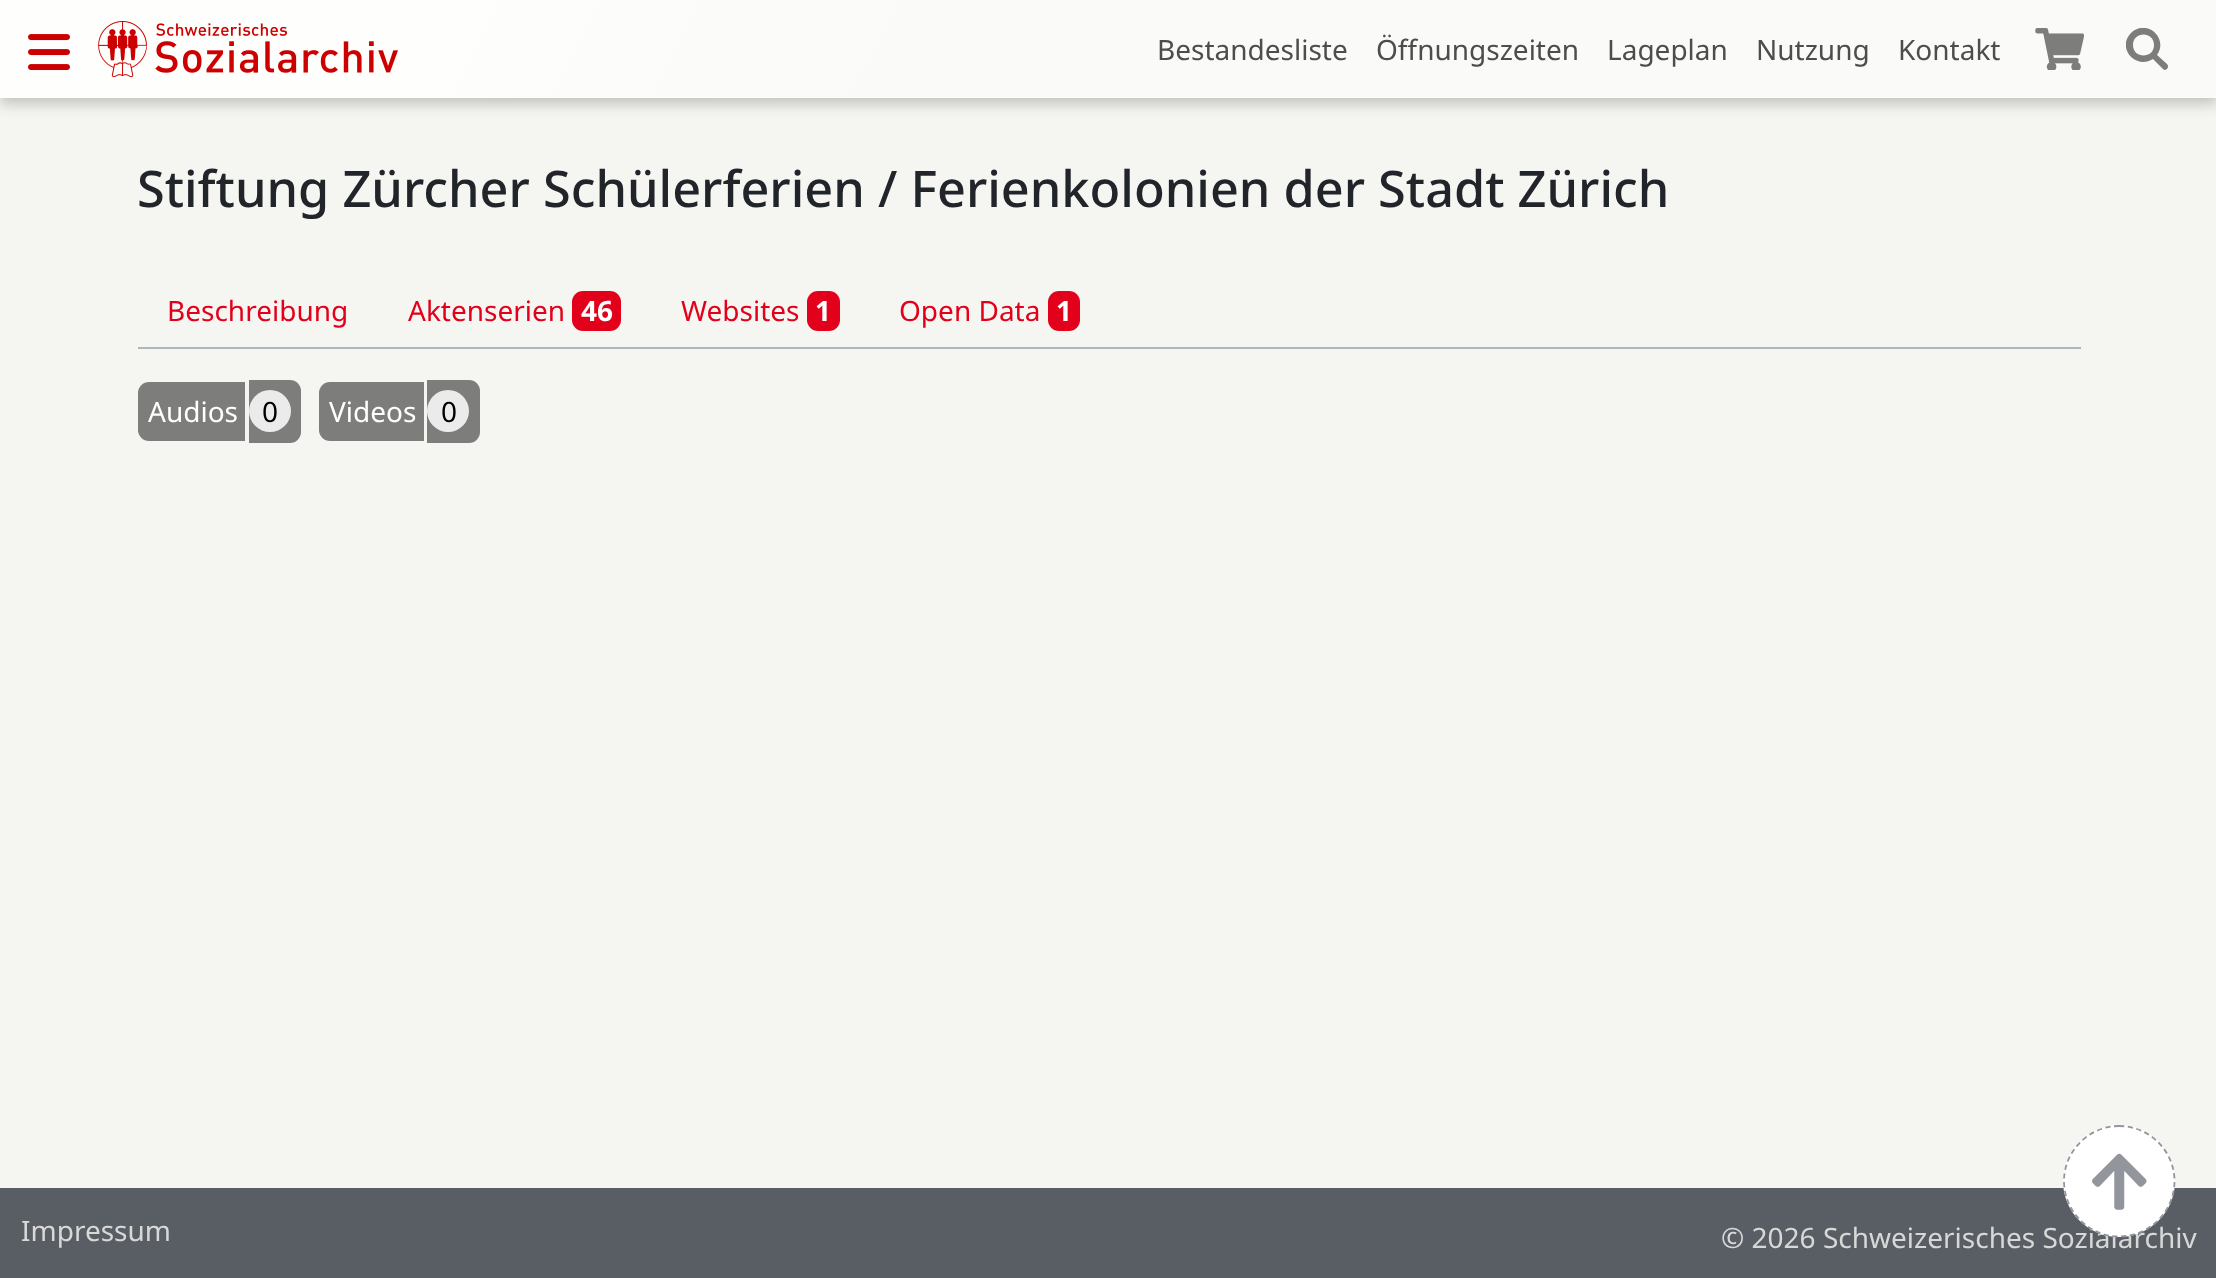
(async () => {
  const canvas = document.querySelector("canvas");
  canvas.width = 2216;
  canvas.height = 1278;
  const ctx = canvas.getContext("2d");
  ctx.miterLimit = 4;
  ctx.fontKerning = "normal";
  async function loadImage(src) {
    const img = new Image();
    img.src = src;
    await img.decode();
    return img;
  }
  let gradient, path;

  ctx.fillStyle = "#f5f5f2";
  ctx.fillRect(0, 0, 2216, 1278);
  ctx.fillStyle = "rgba(0, 0, 0, 0.08)";
  ctx.filter = "blur(7px)";
  ctx.beginPath();
  ctx.rect(0, 0, 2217, 98);
  ctx.fill();
  ctx.filter = "none";
  ctx.fillStyle = "rgba(0, 0, 0, 0.16)";
  ctx.filter = "blur(7px)";
  ctx.beginPath();
  ctx.rect(0, 7, 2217, 98);
  ctx.fill();
  ctx.filter = "none";
  gradient = ctx.createLinearGradient(209, -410, 2009, 508);
  gradient.addColorStop(0, "#fefefd");
  gradient.addColorStop(0.2, "#fefefd");
  gradient.addColorStop(0.4, "#fafaf8");
  gradient.addColorStop(1, "#fafaf8");
  ctx.fillStyle = gradient;
  ctx.fillRect(0, 0, 2216, 98);
  ctx.drawImage(await loadImage("img/1.png"), 28, 34, 42, 36);
  ctx.drawImage(await loadImage("img/2.png"), 98, 21, 300, 56);
  ctx.drawImage(await loadImage("img/3.png"), 2035, 28, 49, 42);
  ctx.save();
  ctx.beginPath();
  ctx.rect(2126, 28, 42, 42);
  ctx.clip();
  ctx.fillStyle = "#7d7d7c";
  path = new Path2D("M2167 64L2157 55C2169 38 2146 18 2131 33C2116 48 2136 70 2153 59L2163 69C2166 72 2170 67 2167 64ZM2133 45C2133 31 2154 31 2154 45C2154 59 2133 59 2133 45Z");
  ctx.fill(path);
  ctx.restore();
  ctx.fillStyle = "#adb5bd";
  ctx.fillRect(138, 347, 1943, 2);
  ctx.fillStyle = "#e2001a";
  ctx.beginPath();
  ctx.roundRect(572, 291, 49, 40, 11);
  ctx.fill();
  ctx.beginPath();
  ctx.roundRect(807, 291, 33, 40, 11);
  ctx.fill();
  ctx.beginPath();
  ctx.roundRect(1048, 291, 32, 40, 11);
  ctx.fill();
  ctx.fillStyle = "#7d7d7c";
  ctx.beginPath();
  ctx.roundRect(138, 382, 107, 59, [11, 0, 0, 11]);
  ctx.fill();
  ctx.beginPath();
  ctx.roundRect(249, 380, 52, 63, [0, 11, 11, 0]);
  ctx.fill();
  ctx.fillStyle = "#ebebeb";
  ctx.beginPath();
  ctx.arc(270, 411, 21, 0, Math.PI * 2);
  ctx.fill();
  ctx.fillStyle = "#7d7d7c";
  ctx.beginPath();
  ctx.roundRect(319, 382, 105, 59, [11, 0, 0, 11]);
  ctx.fill();
  ctx.beginPath();
  ctx.roundRect(427, 380, 53, 63, [0, 11, 11, 0]);
  ctx.fill();
  ctx.fillStyle = "#ebebeb";
  ctx.beginPath();
  ctx.arc(448, 411, 21, 0, Math.PI * 2);
  ctx.fill();
  ctx.fillStyle = "#595e64";
  ctx.fillRect(0, 1188, 2216, 90);
  ctx.font = "28px Noto Sans";
  ctx.fillStyle = "#4d4d4d";
  for (const [text, x, y] of [
    ["Bestandesliste", 1157, 60],
    ["Öffnungszeiten", 1376, 60],
    ["Lageplan", 1607, 60],
    ["Nutzung", 1756, 60],
    ["Kontakt", 1898, 60],
  ]) {
    ctx.fillText(text, x, y);
  }
  ctx.font = "500 50.4px Noto Sans";
  ctx.fillStyle = "#212529";
  ctx.fillText("Stiftung Zürcher Schülerferien / Ferienkolonien der Stadt Zürich", 137, 207);
  ctx.font = "28px Noto Sans";
  ctx.fillStyle = "#e2001a";
  ctx.fillText("Beschreibung", 167, 321);
  ctx.fillText("Aktenserien", 408, 321);
  ctx.font = "bold 28px Noto Sans";
  ctx.fillStyle = "#ffffff";
  ctx.fillText("46", 581, 321);
  ctx.font = "28px Noto Sans";
  ctx.fillStyle = "#e2001a";
  ctx.fillText("Websites", 681, 321);
  ctx.font = "bold 28px Noto Sans";
  ctx.fillStyle = "#ffffff";
  ctx.fillText("1", 815, 321);
  ctx.font = "28px Noto Sans";
  ctx.fillStyle = "#e2001a";
  ctx.fillText("Open Data", 899, 321);
  ctx.font = "bold 28px Noto Sans";
  ctx.fillStyle = "#ffffff";
  ctx.fillText("1", 1056, 321);
  ctx.font = "28px Noto Sans";
  ctx.fillText("Audios", 148, 422);
  ctx.fillStyle = "#000000";
  ctx.fillText("0", 262, 422);
  ctx.fillStyle = "#ffffff";
  ctx.fillText("Videos", 329, 422);
  ctx.fillStyle = "#000000";
  ctx.fillText("0", 441, 422);
  ctx.fillStyle = "#d8d8d8";
  ctx.fillText("Impressum", 21, 1241);
  ctx.fillText("© 2026 Schweizerisches Sozialarchiv", 1721, 1248);
  ctx.fillStyle = "#ffffff";
  ctx.beginPath();
  ctx.arc(2119, 1181, 56, 0, Math.PI * 2);
  ctx.fill();
  ctx.drawImage(await loadImage("img/4.png"), 2092, 1153, 55, 57);
  path = new Path2D("M2119 1126C2149.5 1126 2174.5 1151 2174.5 1181C2174.5 1211.5 2149.5 1236.5 2119 1236.5C2089 1236.5 2064 1211.5 2064 1181C2064 1151 2089 1126 2119 1126Z");
  ctx.strokeStyle = "#92969c";
  ctx.lineWidth = 1.8;
  ctx.setLineDash([5.25, 3.5]);
  ctx.stroke(path);
})();
